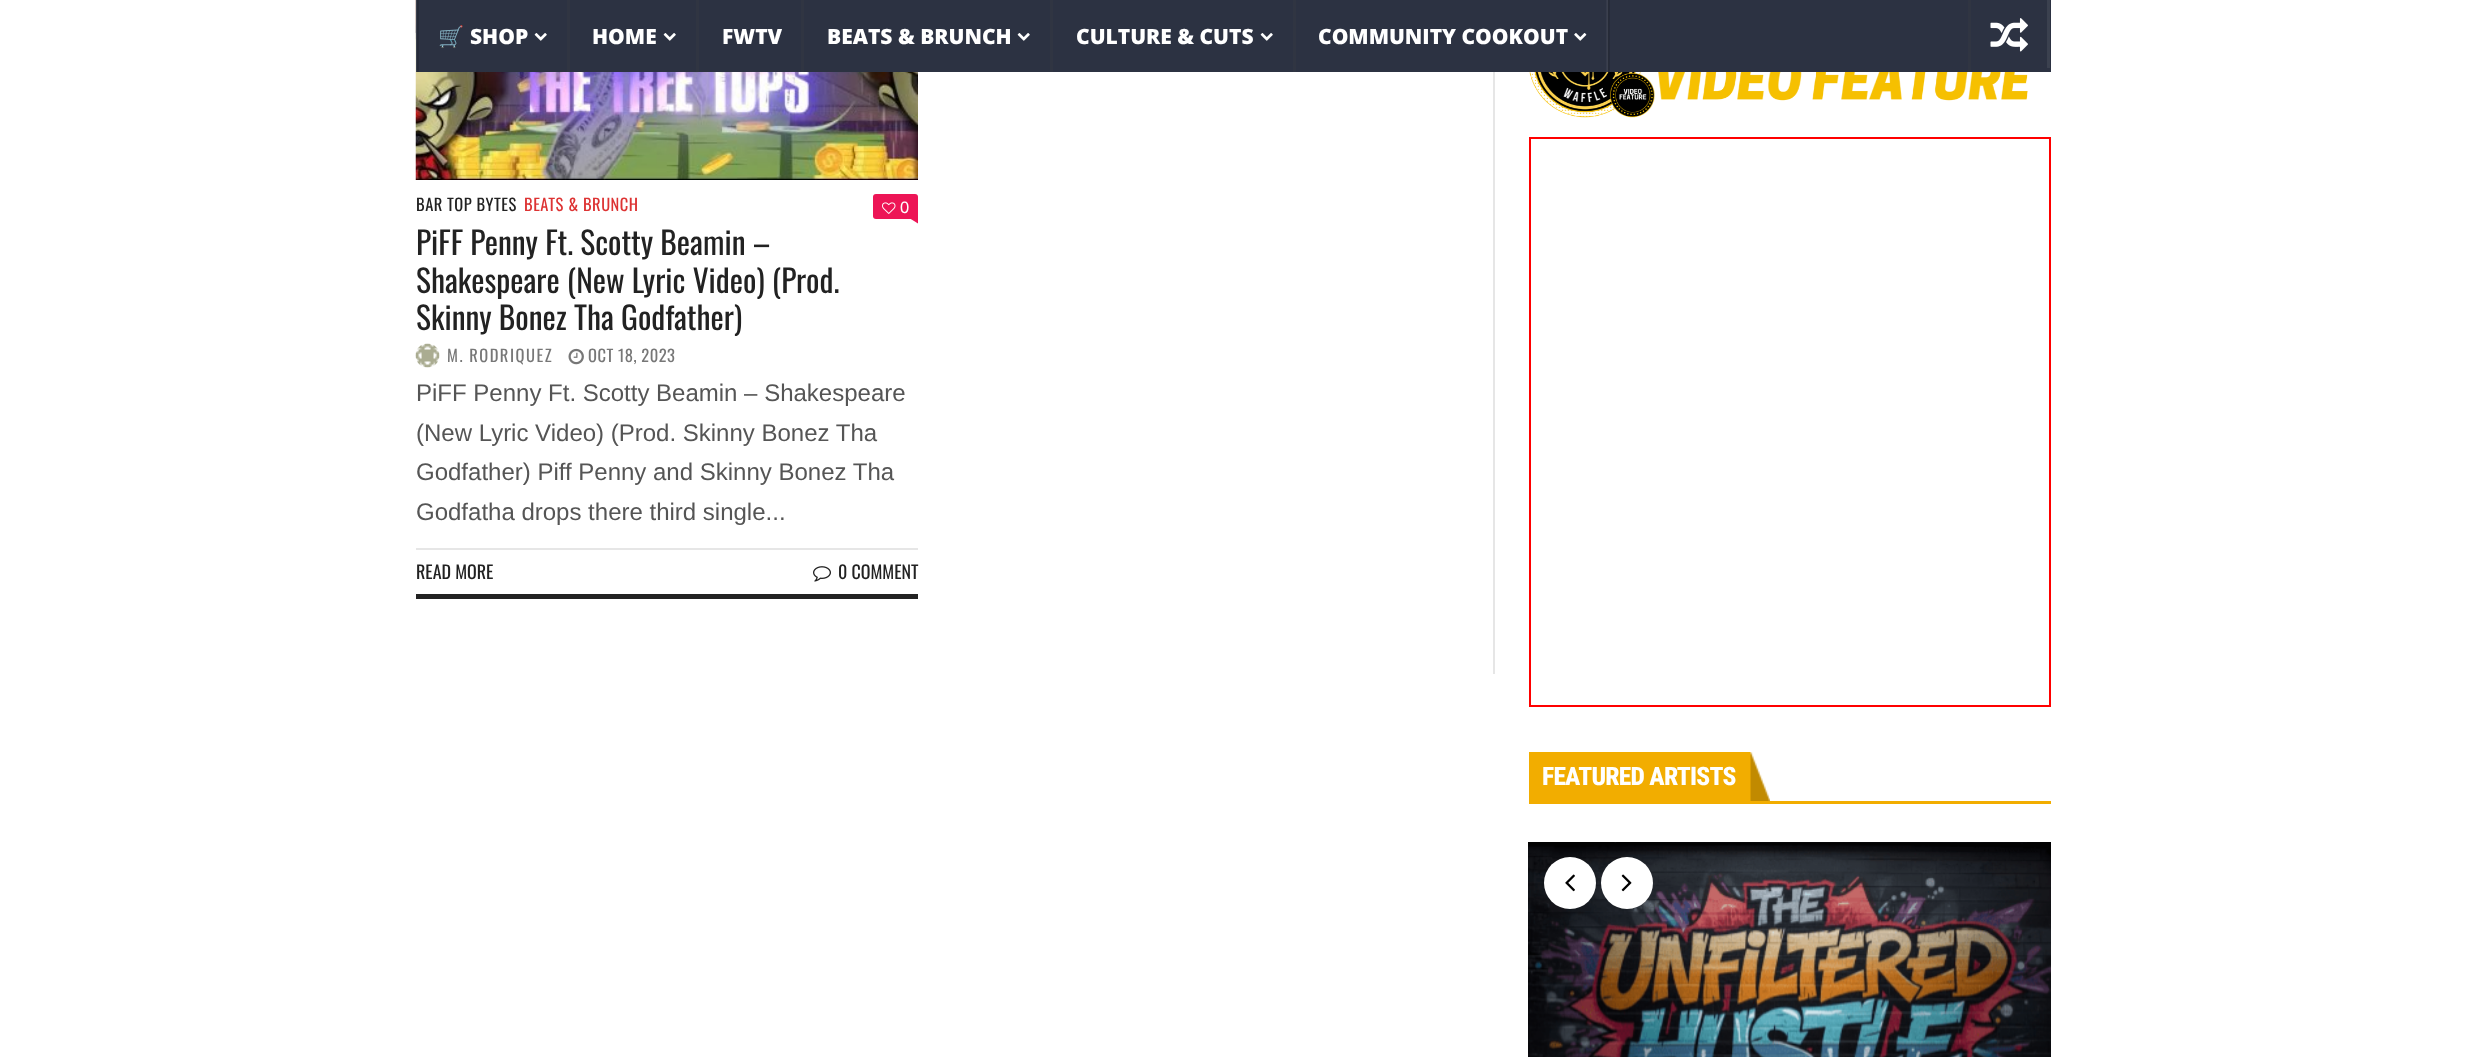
(async () => {
  const canvas = document.querySelector("canvas");
  canvas.width = 2466;
  canvas.height = 1057;
  const ctx = canvas.getContext("2d");
  ctx.miterLimit = 4;
  ctx.fontKerning = "normal";
  async function loadImage(src) {
    const img = new Image();
    img.src = src;
    await img.decode();
    return img;
  }
  let path;

  ctx.fillStyle = "#ffffff";
  ctx.fillRect(0, 0, 2466, 1057);
  ctx.drawImage(await loadImage("img/6.png"), 415, 0, 503, 180);
  ctx.fillStyle = "#2c3242";
  ctx.fillRect(416, 0, 1635, 72);
  ctx.drawImage(await loadImage("img/1.png"), 415, 0, 4, 72);
  ctx.fillStyle = "#303542";
  ctx.fillRect(567, 0, 3, 72);
  ctx.drawImage(await loadImage("img/2.png"), 534, 33, 13, 8);
  ctx.fillRect(696, 0, 3, 72);
  ctx.drawImage(await loadImage("img/2.png"), 663, 33, 13, 8);
  ctx.fillRect(801, 0, 3, 72);
  ctx.fillRect(1050, 0, 3, 72);
  ctx.drawImage(await loadImage("img/2.png"), 1017, 33, 13, 8);
  ctx.fillRect(1293, 0, 3, 72);
  ctx.drawImage(await loadImage("img/2.png"), 1260, 33, 13, 8);
  ctx.drawImage(await loadImage("img/3.png"), 1606, 0, 4, 72);
  ctx.drawImage(await loadImage("img/4.png"), 1574, 33, 13, 8);
  ctx.fillRect(1968, 0, 3, 72);
  ctx.fillStyle = "#3b414f";
  ctx.fillRect(2047, 0, 3, 68);
  ctx.drawImage(await loadImage("img/5.png"), 1990, 18, 38, 34);
  ctx.fillStyle = "#e6e6e6";
  ctx.fillRect(1493, 72, 2, 602);
  ctx.fillStyle = "#ed1556";
  ctx.beginPath();
  ctx.roundRect(873, 194, 45, 25, 3);
  ctx.fill();
  ctx.drawImage(await loadImage("img/7.png"), 882, 202, 14, 12);
  path = new Path2D("M906 216H918V223.5Z");
  ctx.fill(path);
  ctx.drawImage(await loadImage("img/8.png"), 415, 343, 25, 25);
  ctx.drawImage(await loadImage("img/9.png"), 568, 348, 16, 17);
  ctx.fillStyle = "#e6e6e6";
  ctx.fillRect(416, 548, 502, 2);
  ctx.fillStyle = "#222222";
  ctx.fillRect(416, 594, 502, 5);
  ctx.drawImage(await loadImage("img/10.png"), 813, 566, 18, 16);
  ctx.drawImage(await loadImage("img/11.png"), 1529, 72, 499, 46);
  ctx.strokeStyle = "#ff0000";
  ctx.lineWidth = 2;
  ctx.strokeRect(1530, 138, 520, 568);
  ctx.fillStyle = "#f2ad00";
  ctx.fillRect(1529, 801, 522, 3);
  ctx.fillRect(1529, 752, 241, 49);
  ctx.drawImage(await loadImage("img/12.png"), 1750, 752, 20, 49);
  ctx.drawImage(await loadImage("img/13.png"), 1528, 842, 523, 215);
  ctx.fillStyle = "#ffffff";
  ctx.beginPath();
  ctx.arc(1570, 883, 26, 0, Math.PI * 2);
  ctx.fill();
  ctx.drawImage(await loadImage("img/14.png"), 1565, 874, 10, 18);
  ctx.beginPath();
  ctx.arc(1627, 883, 26, 0, Math.PI * 2);
  ctx.fill();
  ctx.drawImage(await loadImage("img/15.png"), 1621, 874, 11, 18);
  ctx.font = "bold 21px Noto Color Emoji";
  ctx.fillText("🛒", 438, 44);
  ctx.font = "800 21px Open Sans";
  for (const [text, x, y] of [
    ["SHOP", 470, 44],
    ["HOME", 592, 44],
    ["FWTV", 722, 44],
    ["BEATS & BRUNCH", 827, 44],
    ["CULTURE & CUTS", 1076, 44],
    ["COMMUNITY COOKOUT", 1318, 44],
  ]) {
    ctx.fillText(text, x, y);
  }
  ctx.letterSpacing = "0.5px";
  ctx.font = "16.5px Oswald";
  ctx.fillStyle = "#222222";
  ctx.fillText("BAR TOP BYTES", 416, 211);
  ctx.fillStyle = "#dd3333";
  ctx.fillText("BEATS & BRUNCH", 524, 211);
  ctx.letterSpacing = "0px";
  ctx.font = "16.5px Liberation Sans";
  ctx.fillStyle = "#ffffff";
  ctx.fillText("0", 900, 213);
  ctx.font = "31.5px Oswald";
  ctx.fillStyle = "#222222";
  for (const [text, x, y] of [
    ["PiFF Penny Ft. Scotty Beamin –", 416, 255],
    ["Shakespeare (New Lyric Video) (Prod.", 416, 293],
    ["Skinny Bonez Tha Godfather)", 416, 330],
  ]) {
    ctx.fillText(text, x, y);
  }
  ctx.letterSpacing = "1.5px";
  ctx.font = "16.5px Oswald";
  ctx.fillStyle = "#777777";
  ctx.fillText("M. RODRIQUEZ", 447, 362);
  ctx.letterSpacing = "0.5px";
  ctx.fillText("OCT 18, 2023", 588, 362);
  ctx.letterSpacing = "0px";
  ctx.font = "24px Liberation Sans";
  ctx.fillStyle = "#555555";
  for (const [text, x, y] of [
    ["PiFF Penny Ft. Scotty Beamin – Shakespeare", 416, 401],
    ["(New Lyric Video) (Prod. Skinny Bonez Tha", 416, 441],
    ["Godfather) Piff Penny and Skinny Bonez Tha", 416, 480],
    ["Godfatha drops there third single...", 416, 520],
  ]) {
    ctx.fillText(text, x, y);
  }
  ctx.font = "18px Oswald";
  ctx.fillStyle = "#222222";
  ctx.fillText("READ MORE", 416, 579);
  ctx.fillText("0 COMMENT", 838, 579);
  ctx.letterSpacing = "-0.75px";
  ctx.font = "800 25.5px Roboto Condensed";
  ctx.fillStyle = "#ffffff";
  ctx.fillText("FEATURED ARTISTS", 1542, 785);
})();
